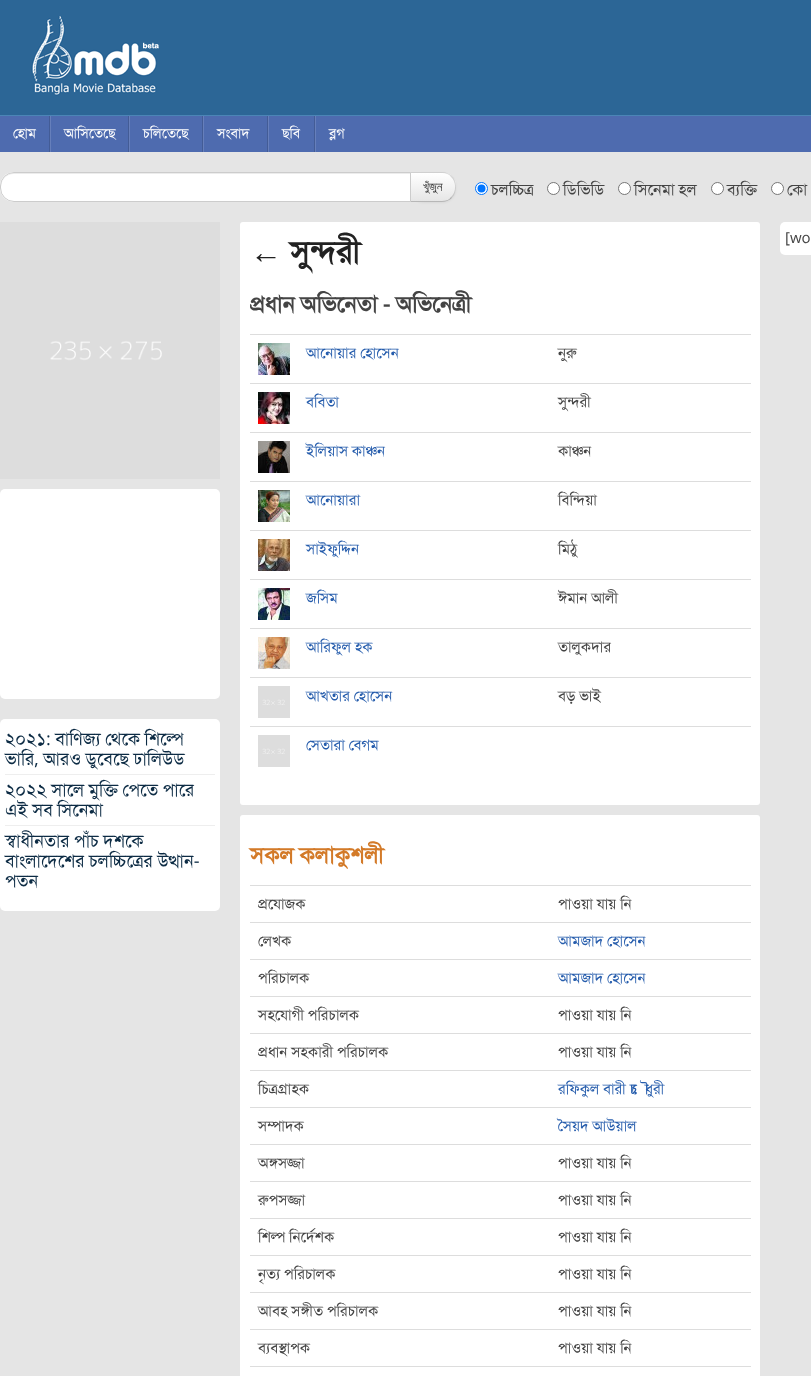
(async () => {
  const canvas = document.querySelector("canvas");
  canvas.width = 811;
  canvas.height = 1376;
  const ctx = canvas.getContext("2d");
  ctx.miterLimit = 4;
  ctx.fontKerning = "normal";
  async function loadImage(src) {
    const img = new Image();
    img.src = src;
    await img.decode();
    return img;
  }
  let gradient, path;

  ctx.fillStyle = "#e5e5e5";
  ctx.fillRect(0, 0, 811, 1376);
  ctx.fillStyle = "#2c6696";
  ctx.fillRect(0, 0, 811, 115);
  ctx.fillStyle = "#4b85b6";
  ctx.fillRect(0, 115, 811, 1);
  ctx.drawImage(await loadImage("img/1.png"), 31, 16, 128, 80);
  for (const [x, y, w, h, color] of [
    [0, 116, 811, 36, "#4e6baf"],
    [49, 116, 1, 36, "#435c96"],
    [128, 116, 1, 36, "#435c96"],
    [50, 116, 1, 36, "#667fbb"],
    [202, 116, 1, 36, "#435c96"],
    [129, 116, 1, 36, "#667fbb"],
    [267, 116, 1, 36, "#435c96"],
    [203, 116, 1, 36, "#667fbb"],
    [314, 116, 1, 36, "#435c96"],
    [268, 116, 1, 36, "#667fbb"],
    [315, 116, 1, 36, "#667fbb"],
  ]) {
    ctx.fillStyle = color;
    ctx.fillRect(x, y, w, h);
  }
  ctx.fillStyle = "rgba(0, 0, 0, 0.05)";
  ctx.filter = "blur(1px)";
  ctx.beginPath();
  ctx.roundRect(410, 173, 46, 30, 14);
  ctx.fill();
  ctx.filter = "none";
  ctx.fillStyle = "#ffffff";
  ctx.beginPath();
  ctx.roundRect(0, 172, 410, 30, [14, 0, 0, 14]);
  ctx.fill();
  ctx.fillStyle = "#ececec";
  path = new Path2D("M14 174H410V173H14C7 173 1 179 1 186V188C1 190 1 192 2 193C-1 185 3 174 14 174Z");
  ctx.fill(path);
  ctx.fillStyle = "#f5f5f5";
  ctx.beginPath();
  ctx.roundRect(410, 172, 46, 30, [0, 14, 14, 0]);
  ctx.fill();
  ctx.save();
  ctx.beginPath();
  ctx.roundRect(410, 172, 46, 30, [0, 14, 14, 0]);
  ctx.clip();
  gradient = ctx.createLinearGradient(433, 173, 433, 201);
  gradient.addColorStop(0, "#ffffff");
  gradient.addColorStop(1, "#e6e6e6");
  ctx.fillStyle = gradient;
  ctx.fillRect(411, 173, 45, 28);
  ctx.restore();
  ctx.fillStyle = "rgba(0, 0, 0, 0.15)";
  path = new Path2D("M410 172L411 173H442C446 173 449 174 451 177L452 176C450 174 446 172 442 172Z");
  ctx.fill(path);
  path = new Path2D("M456 188C456 183.5 455.5 179.5 452 176L451 177C456.5 182 456.5 192 451 197L452 198C454.5 195.5 456 192 456 188Z");
  ctx.fill(path);
  ctx.fillStyle = "rgba(0, 0, 0, 0.25)";
  path = new Path2D("M442 202C446 202 450 200 452 198L451 197C449 200 446 201 442 201H411L410 202Z");
  ctx.fill(path);
  ctx.beginPath();
  ctx.roundRect(0.5, 172.5, 410, 29, [13.5, 0, 0, 13.5]);
  ctx.strokeStyle = "#cccccc";
  ctx.stroke();
  ctx.fillStyle = "#ffffff";
  ctx.beginPath();
  ctx.arc(481.5, 188.5, 6, 0, Math.PI * 2);
  ctx.fill();
  ctx.strokeStyle = "#0075ff";
  ctx.stroke();
  ctx.fillStyle = "#0075ff";
  ctx.beginPath();
  ctx.arc(481.5, 188.5, 4, 0, Math.PI * 2);
  ctx.fill();
  ctx.fillStyle = "#ffffff";
  ctx.beginPath();
  ctx.arc(553.5, 188.5, 6, 0, Math.PI * 2);
  ctx.fill();
  ctx.strokeStyle = "#767676";
  ctx.stroke();
  ctx.beginPath();
  ctx.arc(624.5, 188.5, 6, 0, Math.PI * 2);
  ctx.fill();
  ctx.stroke();
  ctx.beginPath();
  ctx.arc(717.5, 188.5, 6, 0, Math.PI * 2);
  ctx.fill();
  ctx.stroke();
  ctx.beginPath();
  ctx.arc(777.5, 188.5, 6, 0, Math.PI * 2);
  ctx.fill();
  ctx.stroke();
  ctx.drawImage(await loadImage("img/2.png"), 0, 222, 220, 257);
  ctx.beginPath();
  ctx.roundRect(0, 489, 220, 210, 5);
  ctx.fill();
  ctx.beginPath();
  ctx.roundRect(0, 719, 220, 192, 5);
  ctx.fill();
  ctx.fillStyle = "#eeeeee";
  ctx.fillRect(5, 774, 210, 1);
  ctx.fillRect(5, 825, 210, 1);
  ctx.fillStyle = "#ffffff";
  ctx.beginPath();
  ctx.roundRect(240, 222, 520, 583, 3);
  ctx.fill();
  ctx.drawImage(await loadImage("img/3.png"), 258, 343, 32, 32);
  ctx.fillStyle = "#dddddd";
  ctx.fillRect(250, 334, 501, 1);
  ctx.drawImage(await loadImage("img/4.png"), 258, 392, 32, 32);
  ctx.fillRect(250, 383, 501, 1);
  ctx.drawImage(await loadImage("img/5.png"), 258, 441, 32, 32);
  ctx.fillRect(250, 432, 501, 1);
  ctx.drawImage(await loadImage("img/6.png"), 258, 490, 32, 32);
  ctx.fillRect(250, 481, 501, 1);
  ctx.drawImage(await loadImage("img/7.png"), 258, 539, 32, 32);
  ctx.fillRect(250, 530, 501, 1);
  ctx.drawImage(await loadImage("img/8.png"), 258, 588, 32, 32);
  ctx.fillRect(250, 579, 501, 1);
  ctx.drawImage(await loadImage("img/9.png"), 258, 637, 32, 32);
  ctx.fillRect(250, 628, 501, 1);
  ctx.drawImage(await loadImage("img/10.png"), 258, 686, 32, 32);
  ctx.fillRect(250, 677, 501, 1);
  ctx.fillRect(250, 726, 501, 1);
  ctx.drawImage(await loadImage("img/10.png"), 258, 735, 32, 32);
  ctx.fillStyle = "#ffffff";
  ctx.beginPath();
  ctx.roundRect(240, 815, 520, 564, 3);
  ctx.fill();
  for (const [x, y, w, h, color] of [
    [250, 885, 501, 1, "#dddddd"],
    [250, 922, 501, 1, "#dddddd"],
    [250, 959, 501, 1, "#dddddd"],
    [250, 996, 501, 1, "#dddddd"],
    [250, 1033, 501, 1, "#dddddd"],
    [250, 1070, 501, 1, "#dddddd"],
    [250, 1107, 501, 1, "#dddddd"],
    [250, 1144, 501, 1, "#dddddd"],
    [250, 1181, 501, 1, "#dddddd"],
    [250, 1218, 501, 1, "#dddddd"],
    [250, 1255, 501, 1, "#dddddd"],
    [250, 1292, 501, 1, "#dddddd"],
    [250, 1329, 501, 1, "#dddddd"],
    [250, 1366, 501, 1, "#dddddd"],
  ]) {
    ctx.fillStyle = color;
    ctx.fillRect(x, y, w, h);
  }
  ctx.fillStyle = "#ffffff";
  ctx.beginPath();
  ctx.roundRect(780, 222, 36, 33, 5);
  ctx.fill();
  ctx.font = "14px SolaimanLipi";
  for (const [text, x, y] of [
    ["হোম", 13, 138],
    ["আসিতেছে", 64, 138],
    ["চলিতেছে", 143, 138],
    ["সংবাদ", 217, 138],
    ["ছবি", 282, 138],
    ["ব্লগ", 329, 138],
  ]) {
    ctx.fillText(text, x, y);
  }
  ctx.font = "13px FreeSans";
  ctx.fillStyle = "#333333";
  ctx.fillText("খুঁজুন", 423, 191);
  ctx.font = "16px SolaimanLipi";
  ctx.fillStyle = "#444444";
  for (const [text, x, y] of [
    ["চলচ্চিত্র", 491, 195],
    ["ডিভিডি", 563, 195],
    ["সিনেমা হল", 634, 195],
    ["ব্যক্তি", 727, 195],
    ["কো", 787, 195],
  ]) {
    ctx.fillText(text, x, y);
  }
  ctx.font = "18px SolaimanLipi";
  ctx.fillStyle = "#0c2b44";
  for (const [text, x, y] of [
    ["২০২১: বাণিজ্য থেকে শিল্পে", 5, 745],
    ["ভারি, আরও ডুবেছে ঢালিউড", 5, 765],
    ["২০২২ সালে মুক্তি পেতে পারে", 5, 796],
    ["এই সব সিনেমা", 5, 816],
    ["স্বাধীনতার পাঁচ দশকে", 5, 847],
    ["বাংলাদেশের চলচ্চিত্রের উত্থান-", 5, 867],
    ["পতন", 5, 887],
  ]) {
    ctx.fillText(text, x, y);
  }
  ctx.font = "bold 32px Liberation Sans";
  ctx.fillStyle = "#222222";
  ctx.fillText("←", 250, 263);
  ctx.font = "bold 32px SolaimanLipi";
  ctx.fillText("সুন্দরী", 290, 263);
  ctx.font = "bold 22.75px SolaimanLipi";
  ctx.fillStyle = "#444444";
  ctx.fillText("প্রধান অভিনেতা - অভিনেত্রী", 250, 312);
  ctx.font = "15px SolaimanLipi";
  ctx.fillStyle = "#255cac";
  ctx.fillText("আনোয়ার হোসেন", 306, 358);
  ctx.fillStyle = "#444444";
  ctx.fillText("নুরু", 558, 358);
  ctx.fillStyle = "#255cac";
  ctx.fillText("ববিতা", 306, 407);
  ctx.fillStyle = "#444444";
  ctx.fillText("সুন্দরী", 558, 407);
  ctx.fillStyle = "#255cac";
  ctx.fillText("ইলিয়াস কাঞ্চন", 306, 456);
  ctx.fillStyle = "#444444";
  ctx.fillText("কাঞ্চন", 558, 456);
  ctx.fillStyle = "#255cac";
  ctx.fillText("আনোয়ারা", 306, 505);
  ctx.fillStyle = "#444444";
  ctx.fillText("বিন্দিয়া", 558, 505);
  ctx.fillStyle = "#255cac";
  ctx.fillText("সাইফুদ্দিন", 306, 554);
  ctx.fillStyle = "#444444";
  ctx.fillText("মিঠু", 558, 554);
  ctx.fillStyle = "#255cac";
  ctx.fillText("জসিম", 306, 603);
  ctx.fillStyle = "#444444";
  ctx.fillText("ঈমান আলী", 558, 603);
  ctx.fillStyle = "#255cac";
  ctx.fillText("আরিফুল হক", 306, 652);
  ctx.fillStyle = "#444444";
  ctx.fillText("তালুকদার", 558, 652);
  ctx.fillStyle = "#255cac";
  ctx.fillText("আখতার হোসেন", 306, 701);
  ctx.fillStyle = "#444444";
  ctx.fillText("বড় ভাই", 558, 701);
  ctx.fillStyle = "#255cac";
  ctx.fillText("সেতারা বেগম", 306, 750);
  ctx.font = "bold 22.75px SolaimanLipi";
  ctx.fillStyle = "#d37a28";
  ctx.fillText("সকল কলাকুশলী", 250, 863);
  ctx.font = "15px SolaimanLipi";
  ctx.fillStyle = "#444444";
  for (const [text, x, y] of [
    ["প্রযোজক", 258, 909],
    ["পাওয়া যায় নি", 558, 909],
    ["লেখক", 258, 946],
  ]) {
    ctx.fillText(text, x, y);
  }
  ctx.fillStyle = "#255cac";
  ctx.fillText("আমজাদ হোসেন", 558, 946);
  ctx.fillStyle = "#444444";
  ctx.fillText("পরিচালক", 258, 983);
  ctx.fillStyle = "#255cac";
  ctx.fillText("আমজাদ হোসেন", 558, 983);
  ctx.fillStyle = "#444444";
  for (const [text, x, y] of [
    ["সহযোগী পরিচালক", 258, 1020],
    ["পাওয়া যায় নি", 558, 1020],
    ["প্রধান সহকারী পরিচালক", 258, 1057],
    ["পাওয়া যায় নি", 558, 1057],
    ["চিত্রগ্রাহক", 258, 1094],
  ]) {
    ctx.fillText(text, x, y);
  }
  ctx.fillStyle = "#255cac";
  ctx.fillText("রফিকুল বারী চৌধুরী", 558, 1094);
  ctx.fillStyle = "#444444";
  ctx.fillText("সম্পাদক", 258, 1131);
  ctx.fillStyle = "#255cac";
  ctx.fillText("সৈয়দ আউয়াল", 558, 1131);
  ctx.fillStyle = "#444444";
  for (const [text, x, y] of [
    ["অঙ্গসজ্জা", 258, 1168],
    ["পাওয়া যায় নি", 558, 1168],
    ["রুপসজ্জা", 258, 1205],
    ["পাওয়া যায় নি", 558, 1205],
    ["শিল্প নির্দেশক", 258, 1242],
    ["পাওয়া যায় নি", 558, 1242],
    ["নৃত্য পরিচালক", 258, 1279],
    ["পাওয়া যায় নি", 558, 1279],
    ["আবহ সঙ্গীত পরিচালক", 258, 1316],
    ["পাওয়া যায় নি", 558, 1316],
    ["ব্যবস্থাপক", 258, 1353],
    ["পাওয়া যায় নি", 558, 1353],
    ["[wo", 785, 243],
  ]) {
    ctx.fillText(text, x, y);
  }
})();
